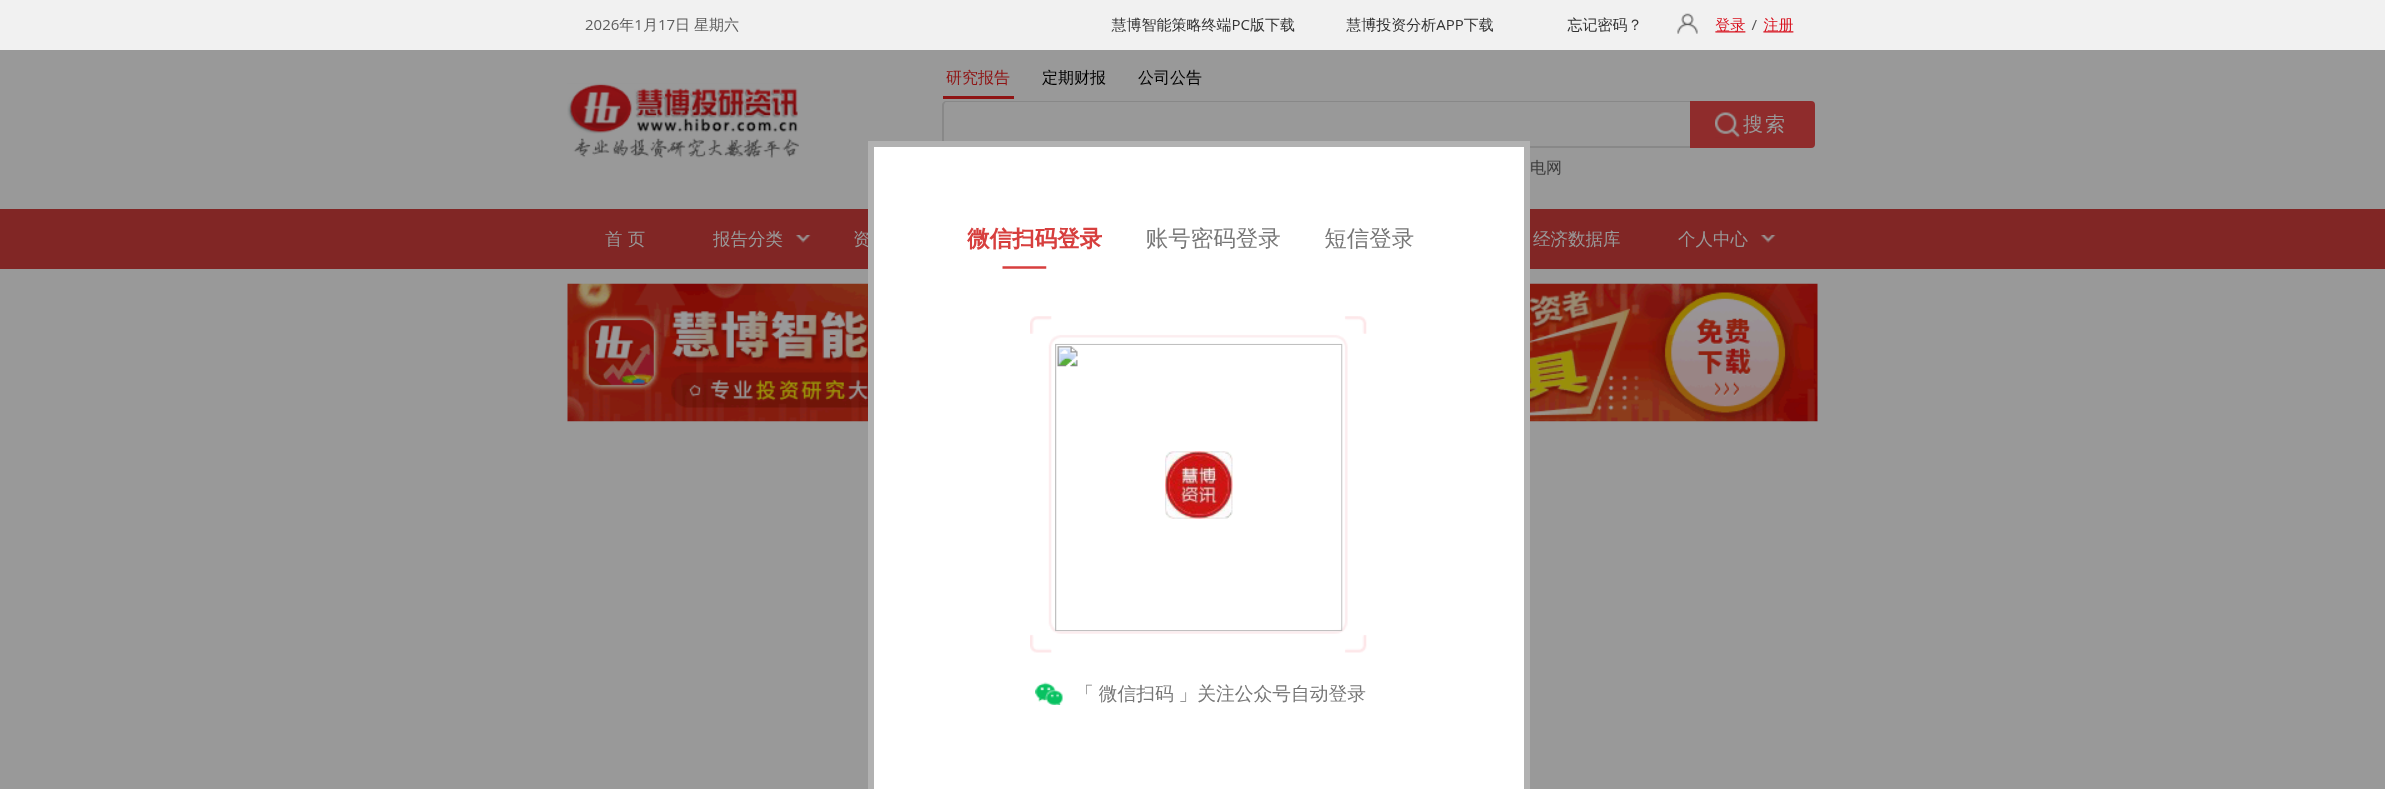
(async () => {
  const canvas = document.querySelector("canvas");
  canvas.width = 2385;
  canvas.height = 789;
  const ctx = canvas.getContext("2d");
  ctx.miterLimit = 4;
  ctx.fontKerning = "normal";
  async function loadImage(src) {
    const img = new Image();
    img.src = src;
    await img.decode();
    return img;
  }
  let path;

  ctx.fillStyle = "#999999";
  ctx.fillRect(0, 0, 2385, 789);
  ctx.fillStyle = "#f1f1f1";
  ctx.fillRect(0, 0, 2385, 50);
  ctx.drawImage(await loadImage("img/1.png"), 585, 13, 1209, 21);
  ctx.drawImage(await loadImage("img/2.png"), 567, 83, 232, 75);
  ctx.fillStyle = "#8f1414";
  ctx.fillRect(943, 96, 71, 3);
  ctx.fillStyle = "#888888";
  path = new Path2D("M946 101H1690V148H946C944 148 942 146 942 144V105C942 103 944 101 946 101ZM946 102H1690V146H946C945 146 944 145 944 144V105C944 104 945 102 946 102Z");
  ctx.fill(path, "evenodd");
  ctx.fillStyle = "#8f2c2c";
  ctx.beginPath();
  ctx.roundRect(1690, 101, 125, 47, [0, 4, 4, 0]);
  ctx.fill();
  ctx.drawImage(await loadImage("img/3.png"), 1715, 112, 26, 26);
  ctx.fillStyle = "#812625";
  ctx.fillRect(0, 209, 2385, 60);
  ctx.drawImage(await loadImage("img/5.png"), 795, 235, 16, 8);
  ctx.drawImage(await loadImage("img/6.png"), 1760, 235, 16, 8);
  ctx.drawImage(await loadImage("img/7.png"), 567, 283, 1251, 139);
  ctx.font = "500 16px WenQuanYi Zen Hei";
  ctx.fillStyle = "#8f1414";
  ctx.fillText("研究报告", 946, 83);
  ctx.fillStyle = "#000000";
  ctx.fillText("定期财报", 1042, 83);
  ctx.fillText("公司公告", 1138, 83);
  ctx.letterSpacing = "2px";
  ctx.font = "500 20px WenQuanYi Zen Hei";
  ctx.fillStyle = "#999999";
  ctx.fillText("搜索", 1743, 131);
  ctx.letterSpacing = "0px";
  ctx.font = "500 16px WenQuanYi Zen Hei";
  ctx.fillStyle = "#3d3d3d";
  ctx.fillText("电网", 1530, 173);
  ctx.font = "500 17.5px WenQuanYi Zen Hei";
  ctx.fillStyle = "#999999";
  for (const [text, x, y] of [
    ["首 页", 605, 245],
    ["报告分类", 713, 245],
    ["资", 853, 245],
  ]) {
    ctx.fillText(text, x, y);
  }
  ctx.fillStyle = "#ffffff";
  ctx.beginPath();
  ctx.rect(871, 144, 656, 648);
  ctx.fill();
  ctx.strokeStyle = "#b1b1b1";
  ctx.lineWidth = 6;
  ctx.stroke();
  ctx.drawImage(await loadImage("img/4.png"), 967, 227, 447, 478);
  ctx.fillStyle = "#999999";
  ctx.fillText("经济数据库", 1533, 245);
  ctx.fillText("个人中心", 1678, 245);
})();
